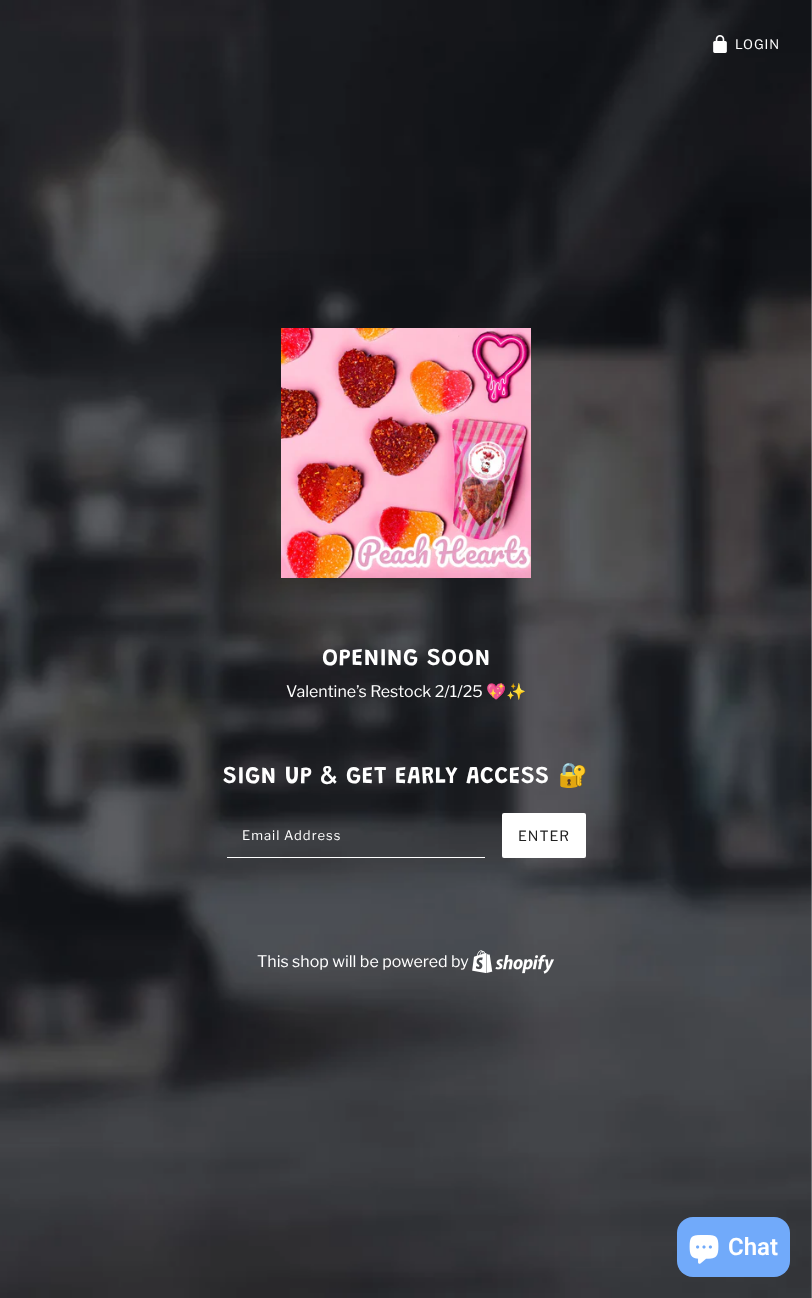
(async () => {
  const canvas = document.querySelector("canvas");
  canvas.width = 812;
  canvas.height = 1298;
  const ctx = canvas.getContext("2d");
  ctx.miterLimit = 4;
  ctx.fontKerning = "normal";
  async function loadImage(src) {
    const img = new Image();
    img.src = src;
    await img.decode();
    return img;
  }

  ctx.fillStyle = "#ffffff";
  ctx.fillRect(0, 0, 812, 1298);
  ctx.drawImage(await loadImage("img/1.png"), 0, 0, 812, 1298);
  ctx.drawImage(await loadImage("img/2.png"), 713, 35, 14, 18);
  ctx.drawImage(await loadImage("img/3.png"), 281, 328, 250, 250);
  ctx.fillRect(227, 857, 258, 1);
  ctx.beginPath();
  ctx.roundRect(502, 813, 84, 45, 2);
  ctx.fill();
  ctx.drawImage(await loadImage("img/4.png"), 472, 950, 82, 24);
  ctx.fillStyle = "#71aafa";
  ctx.beginPath();
  ctx.roundRect(677, 1217, 113, 60, 16);
  ctx.fill();
  ctx.drawImage(await loadImage("img/5.png"), 689, 1235, 30, 29);
  ctx.letterSpacing = "1px";
  ctx.font = "13px Libre Franklin";
  ctx.fillStyle = "#ffffff";
  ctx.fillText("LOGIN", 735, 49);
  ctx.letterSpacing = "0.6px";
  ctx.font = "600 24px Grandstander";
  ctx.fillText("OPENING SOON", 322, 665);
  ctx.letterSpacing = "0px";
  ctx.font = "16px Libre Franklin";
  ctx.fillText("Valentine’s Restock 2/1/25", 286, 697);
  ctx.font = "16px Noto Color Emoji";
  ctx.fillText("💖✨", 486, 697);
  ctx.letterSpacing = "0.6px";
  ctx.font = "600 24px Grandstander";
  ctx.fillText("SIGN UP & GET EARLY ACCESS", 223, 783);
  ctx.font = "bold 24px Noto Color Emoji";
  ctx.fillText("🔐", 558, 783);
  ctx.letterSpacing = "1px";
  ctx.font = "13px Libre Franklin";
  ctx.fillText("Email Address", 242, 840);
  ctx.font = "14px Libre Franklin";
  ctx.fillStyle = "#212121";
  ctx.fillText("ENTER", 518, 841);
  ctx.letterSpacing = "0px";
  ctx.font = "16px Libre Franklin";
  ctx.fillStyle = "#ffffff";
  ctx.fillText("This shop will be powered by", 257, 967);
  ctx.font = "600 24px Roboto";
  ctx.fillText("Chat", 728, 1255);
})();
